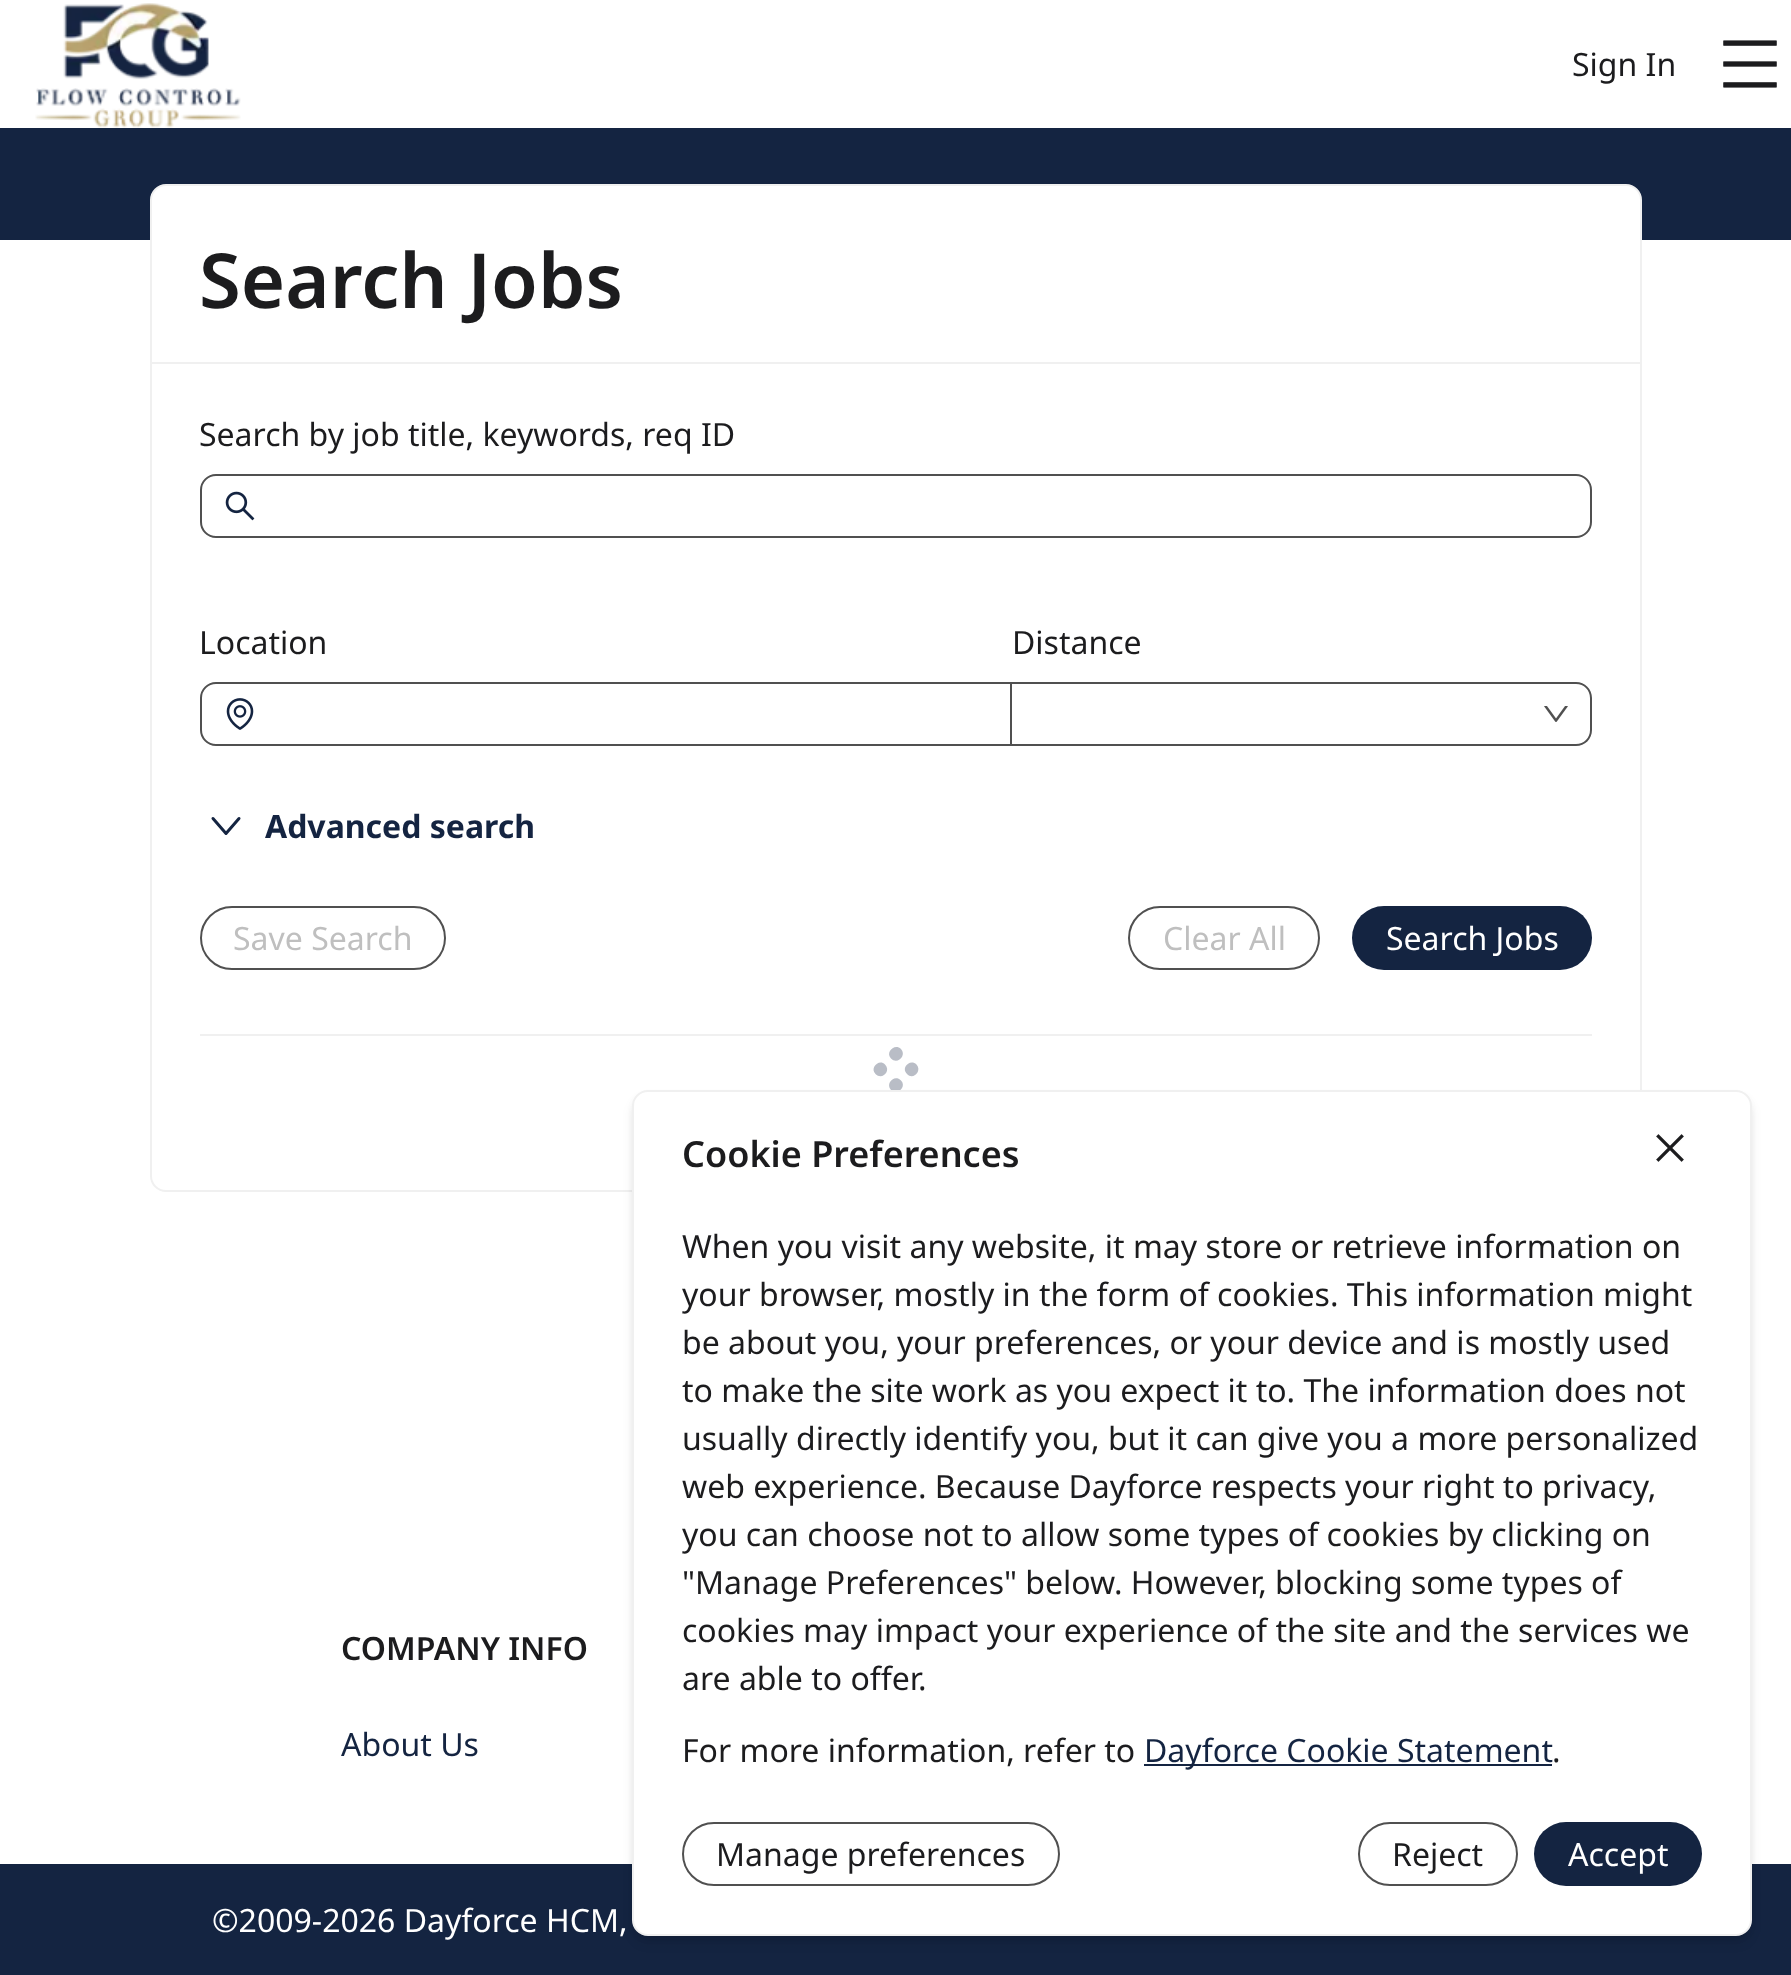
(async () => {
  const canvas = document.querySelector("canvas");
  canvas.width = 1791;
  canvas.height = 1975;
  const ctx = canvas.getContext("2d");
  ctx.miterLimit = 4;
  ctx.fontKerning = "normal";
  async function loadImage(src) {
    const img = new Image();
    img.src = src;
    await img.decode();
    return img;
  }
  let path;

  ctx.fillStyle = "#ffffff";
  ctx.fillRect(0, 0, 1791, 1975);
  ctx.drawImage(await loadImage("img/1.png"), 35, 3, 206, 125);
  ctx.drawImage(await loadImage("img/2.png"), 1723, 40, 54, 48);
  ctx.fillStyle = "#142441";
  ctx.fillRect(0, 128, 1791, 112);
  ctx.fillStyle = "#ffffff";
  ctx.beginPath();
  ctx.roundRect(151, 185, 1490, 1006, 15);
  ctx.fill();
  ctx.strokeStyle = "#f0f0f0";
  ctx.lineWidth = 2;
  ctx.stroke();
  ctx.fillStyle = "#f0f0f0";
  ctx.fillRect(152, 362, 1488, 2);
  ctx.beginPath();
  ctx.roundRect(201, 475, 1390, 62, 15);
  ctx.strokeStyle = "#505050";
  ctx.stroke();
  ctx.drawImage(await loadImage("img/3.png"), 225, 491, 30, 30);
  ctx.beginPath();
  ctx.roundRect(201, 683, 810, 62, [15, 0, 0, 15]);
  ctx.stroke();
  ctx.drawImage(await loadImage("img/4.png"), 226, 698, 28, 32);
  ctx.fillStyle = "#505050";
  path = new Path2D("M1012 682H1576C1585 682 1592 689 1592 698V730C1592 739 1585 746 1576 746H1012ZM1012 684H1576C1584 684 1590 690 1590 698V730C1590 738 1584 744 1576 744H1012Z");
  ctx.fill(path, "evenodd");
  ctx.drawImage(await loadImage("img/5.png"), 1544, 706, 24, 16);
  path = new Path2D("M213 818.5L226 833.5L239 818.5");
  ctx.strokeStyle = "#142441";
  ctx.lineWidth = 3;
  ctx.lineCap = "round";
  ctx.lineJoin = "round";
  ctx.stroke(path);
  ctx.beginPath();
  ctx.roundRect(201, 907, 244, 62, 31);
  ctx.strokeStyle = "#505050";
  ctx.lineWidth = 2;
  ctx.lineJoin = "miter";
  ctx.stroke();
  ctx.beginPath();
  ctx.roundRect(1129, 907, 190, 62, 31);
  ctx.stroke();
  ctx.fillStyle = "#142441";
  ctx.beginPath();
  ctx.roundRect(1352, 906, 240, 64, 32);
  ctx.fill();
  ctx.fillStyle = "#f0f0f0";
  ctx.fillRect(200, 1034, 1392, 2);
  ctx.fillStyle = "#b9bdc6";
  path = new Path2D("M901 1049C907 1055.5 897.5 1065 891 1058.5C885 1052.5 894.5 1043 901 1049ZM916.5 1064.5C922.5 1071 913 1080.5 907 1074C900.5 1068 910 1058.5 916.5 1064.5ZM901 1080.5C907 1086.5 897.5 1096 891 1090C885 1083.5 894.5 1074 901 1080.5ZM885 1064.5C891.5 1071 882 1080.5 875.5 1074C869.5 1068 879 1058.5 885 1064.5Z");
  ctx.fill(path);
  ctx.fillStyle = "#142441";
  ctx.fillRect(0, 1864, 1791, 111);
  ctx.fillStyle = "rgba(0, 0, 0, 0.1)";
  ctx.filter = "blur(4px)";
  ctx.beginPath();
  ctx.roundRect(636, 1098, 1112, 838, 12);
  ctx.fill();
  ctx.filter = "none";
  ctx.filter = "blur(6px)";
  ctx.beginPath();
  ctx.roundRect(634, 1100, 1116, 842, 14);
  ctx.fill();
  ctx.filter = "none";
  ctx.fillStyle = "#ffffff";
  ctx.beginPath();
  ctx.roundRect(633, 1091, 1118, 844, 15);
  ctx.fill();
  ctx.strokeStyle = "#f0f0f0";
  ctx.stroke();
  ctx.drawImage(await loadImage("img/6.png"), 1656, 1134, 28, 28);
  ctx.fillStyle = "#142441";
  ctx.fillRect(1144, 1764, 408, 2);
  ctx.beginPath();
  ctx.roundRect(683, 1823, 376, 62, 31);
  ctx.strokeStyle = "#505050";
  ctx.stroke();
  ctx.beginPath();
  ctx.roundRect(1359, 1823, 158, 62, 31);
  ctx.stroke();
  ctx.beginPath();
  ctx.roundRect(1534, 1822, 168, 64, 32);
  ctx.fill();
  ctx.font = "32px Noto Sans";
  ctx.fillStyle = "#1c1c1e";
  ctx.fillText("Sign In", 1572, 76);
  ctx.font = "600 76px Noto Sans";
  ctx.fillText("Search Jobs", 199, 308);
  ctx.font = "32px Noto Sans";
  for (const [text, x, y] of [
    ["Search by job title, keywords, req ID", 199, 446],
    ["Location", 199, 654],
    ["Distance", 1012, 654],
  ]) {
    ctx.fillText(text, x, y);
  }
  ctx.font = "bold 32px Noto Sans";
  ctx.fillStyle = "#142441";
  ctx.fillText("Advanced search", 265, 838);
  ctx.font = "32px Noto Sans";
  ctx.fillStyle = "#bfbfbf";
  ctx.fillText("Save Search", 233, 950);
  ctx.fillText("Clear All", 1163, 950);
  ctx.fillStyle = "#ffffff";
  ctx.fillText("Search Jobs", 1386, 950);
  ctx.font = "600 32px Noto Sans";
  ctx.fillStyle = "#1c1c1e";
  ctx.fillText("COMPANY INFO", 341, 1660);
  ctx.font = "32px Noto Sans";
  ctx.fillStyle = "#142441";
  ctx.fillText("About Us", 341, 1756);
  ctx.fillStyle = "#ffffff";
  ctx.fillText("©2009-2026 Dayforce HCM,", 212, 1932);
  ctx.font = "600 36px Noto Sans";
  ctx.fillStyle = "#1c1c1e";
  ctx.fillText("Cookie Preferences", 682, 1167);
  ctx.font = "32px Noto Sans";
  for (const [text, x, y] of [
    ["When you visit any website, it may store or retrieve information on", 682, 1258],
    ["your browser, mostly in the form of cookies. This information might", 682, 1306],
    ["be about you, your preferences, or your device and is mostly used", 682, 1354],
    ["to make the site work as you expect it to. The information does not", 682, 1402],
    ["usually directly identify you, but it can give you a more personalized", 682, 1450],
    ["web experience. Because Dayforce respects your right to privacy,", 682, 1498],
    ["you can choose not to allow some types of cookies by clicking on", 682, 1546],
    ["\"Manage Preferences\" below. However, blocking some types of", 682, 1594],
    ["cookies may impact your experience of the site and the services we", 682, 1642],
    ["are able to offer.", 682, 1690],
    ["For more information, refer to", 682, 1762],
  ]) {
    ctx.fillText(text, x, y);
  }
  ctx.fillStyle = "#142441";
  ctx.fillText("Dayforce Cookie Statement", 1144, 1762);
  ctx.fillStyle = "#1c1c1e";
  for (const [text, x, y] of [
    [".", 1552, 1762],
    ["Manage preferences", 716, 1866],
    ["Reject", 1392, 1866],
  ]) {
    ctx.fillText(text, x, y);
  }
  ctx.fillStyle = "#ffffff";
  ctx.fillText("Accept", 1568, 1866);
})();
